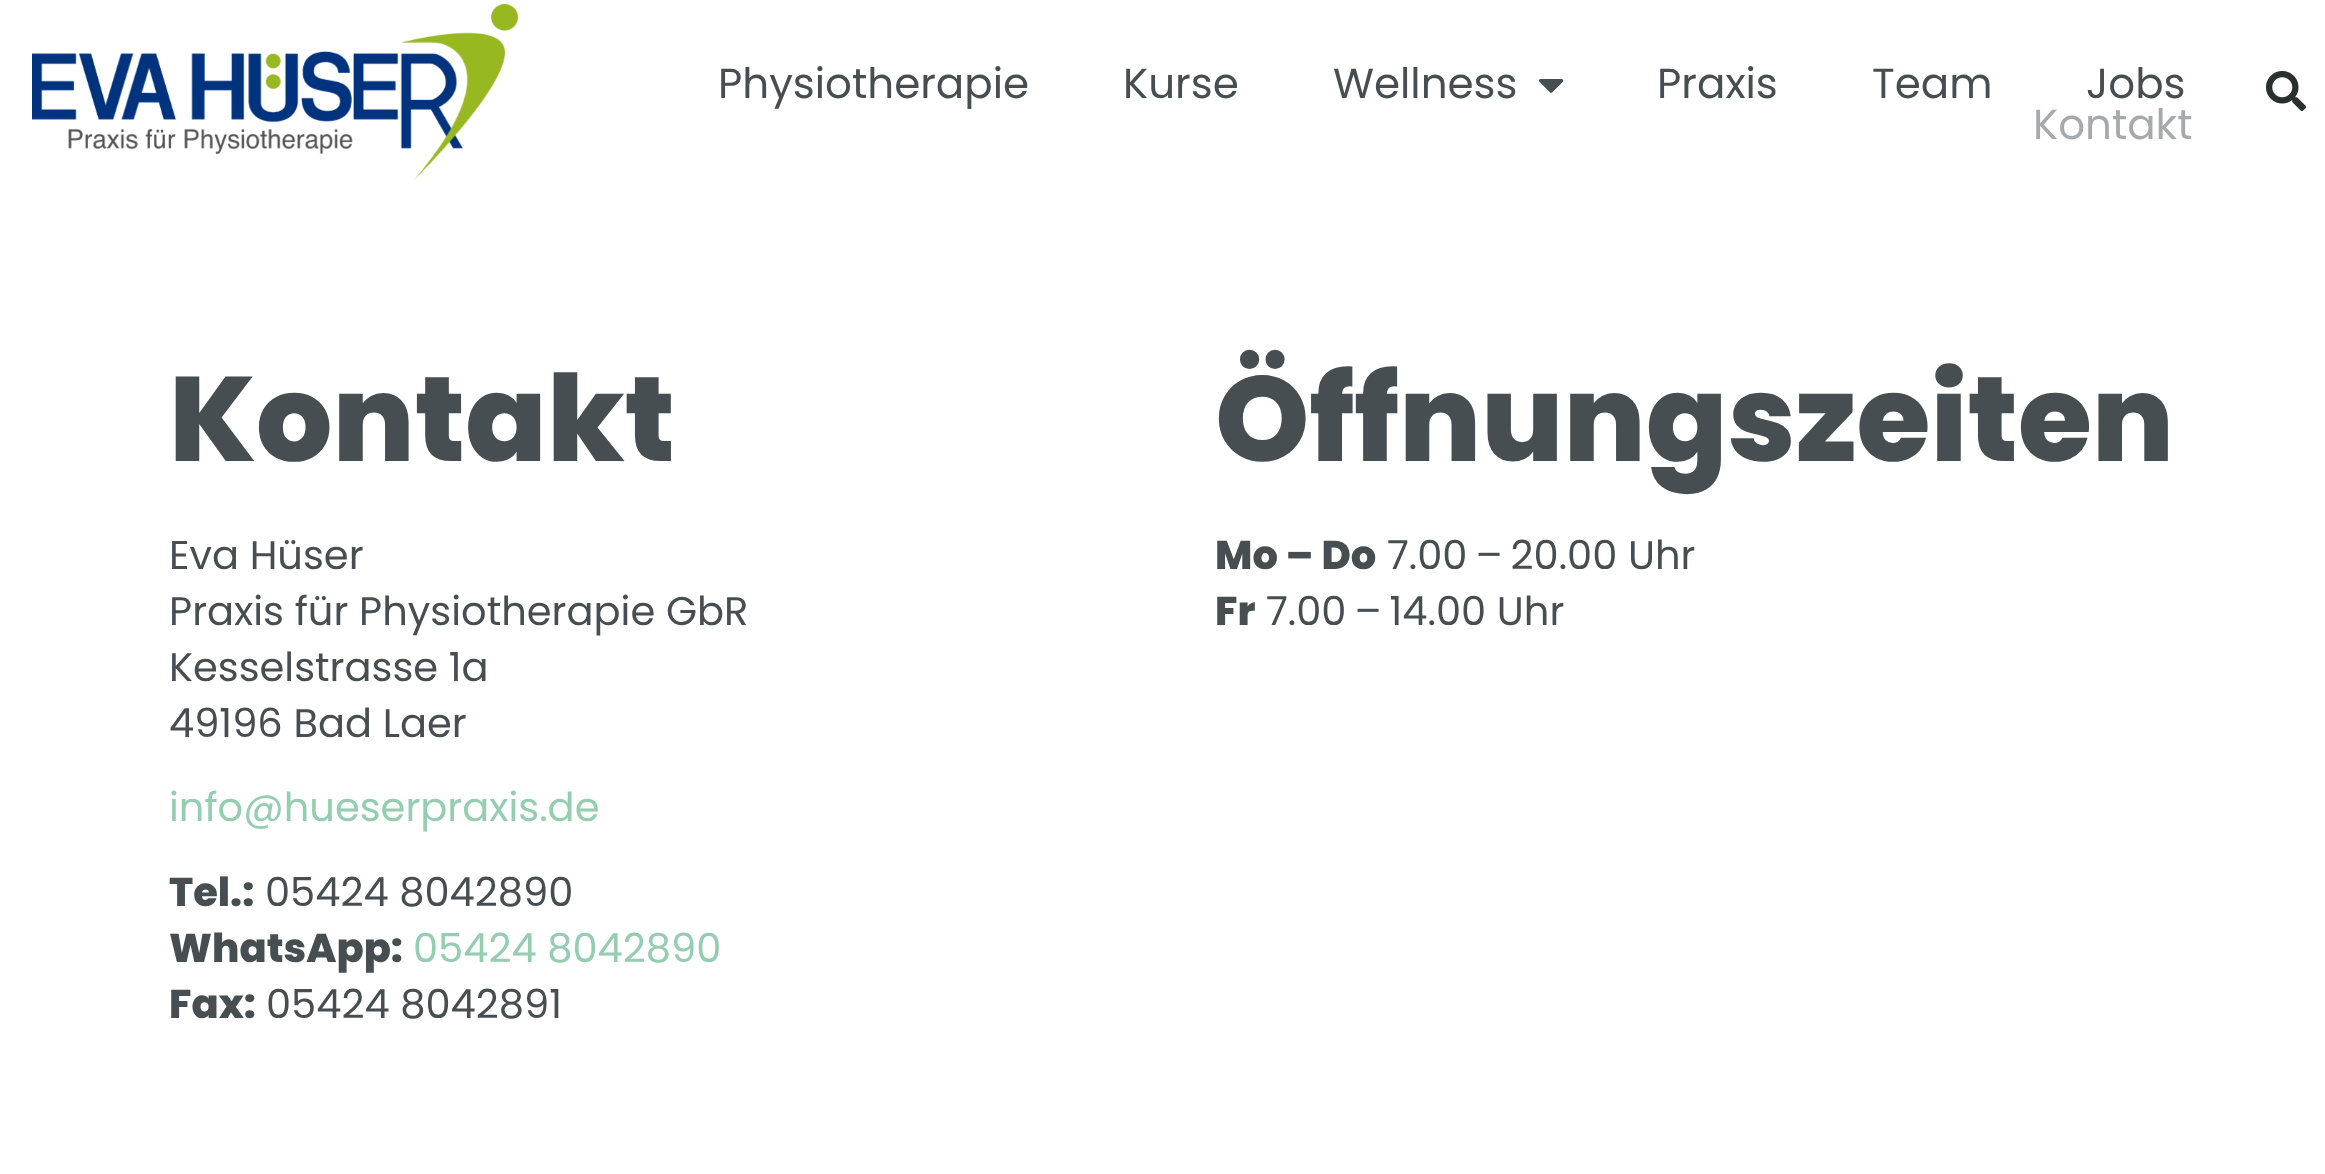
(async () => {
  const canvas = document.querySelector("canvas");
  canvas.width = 2325;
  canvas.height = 1174;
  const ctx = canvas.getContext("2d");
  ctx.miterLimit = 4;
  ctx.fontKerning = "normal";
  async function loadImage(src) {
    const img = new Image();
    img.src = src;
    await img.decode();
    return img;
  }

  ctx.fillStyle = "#ffffff";
  ctx.fillRect(0, 0, 2325, 1174);
  ctx.drawImage(await loadImage("img/1.png"), 32, 3, 486, 177);
  ctx.drawImage(await loadImage("img/2.png"), 1539, 79, 25, 14);
  ctx.drawImage(await loadImage("img/3.png"), 2266, 71, 40, 40);
  ctx.font = "42px Poppins";
  ctx.fillStyle = "#474e51";
  for (const [text, x, y] of [
    ["Physiotherapie", 718, 98],
    ["Kurse", 1123, 98],
    ["Wellness", 1333, 98],
    ["Praxis", 1657, 98],
    ["Team", 1872, 98],
    ["Jobs", 2086, 98],
  ]) {
    ctx.fillText(text, x, y);
  }
  ctx.fillStyle = "#a6aaae";
  ctx.fillText("Kontakt", 2033, 139);
  ctx.font = "800 120px Poppins";
  ctx.fillStyle = "#474e51";
  ctx.fillText("Kontakt", 169, 461);
  ctx.font = "40px Poppins";
  for (const [text, x, y] of [
    ["Eva Hüser", 169, 569],
    ["Praxis für Physiotherapie GbR", 169, 625],
    ["Kesselstrasse 1a", 169, 681],
    ["49196 Bad Laer", 169, 737],
  ]) {
    ctx.fillText(text, x, y);
  }
  ctx.fillStyle = "#94cdaf";
  ctx.fillText("info@hueserpraxis.de", 169, 821);
  ctx.font = "800 40px Poppins";
  ctx.fillStyle = "#474e51";
  ctx.fillText("Tel.:", 169, 906);
  ctx.font = "40px Poppins";
  ctx.fillText("05424 8042890", 265, 906);
  ctx.font = "800 40px Poppins";
  ctx.fillText("WhatsApp:", 169, 962);
  ctx.font = "40px Poppins";
  ctx.fillStyle = "#94cdaf";
  ctx.fillText("05424 8042890", 413, 962);
  ctx.font = "800 40px Poppins";
  ctx.fillStyle = "#474e51";
  ctx.fillText("Fax:", 169, 1018);
  ctx.font = "40px Poppins";
  ctx.fillText("05424 8042891", 266, 1018);
  ctx.font = "800 120px Poppins";
  ctx.fillText("Öffnungszeiten", 1215, 461);
  ctx.font = "800 40px Poppins";
  ctx.fillText("Mo – Do", 1215, 569);
  ctx.font = "40px Poppins";
  ctx.fillText("7.00 – 20.00 Uhr", 1387, 569);
  ctx.font = "800 40px Poppins";
  ctx.fillText("Fr", 1215, 625);
  ctx.font = "40px Poppins";
  ctx.fillText("7.00 – 14.00 Uhr", 1266, 625);
})();
